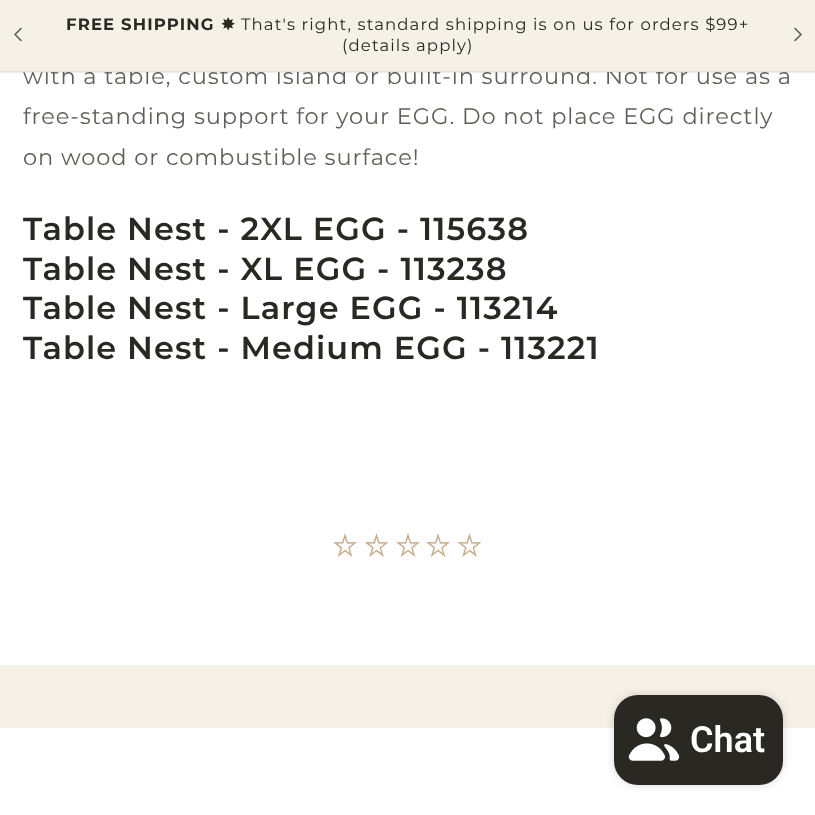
(async () => {
  const canvas = document.querySelector("canvas");
  canvas.width = 815;
  canvas.height = 815;
  const ctx = canvas.getContext("2d");
  ctx.miterLimit = 4;
  ctx.fontKerning = "normal";
  async function loadImage(src) {
    const img = new Image();
    img.src = src;
    await img.decode();
    return img;
  }

  ctx.fillStyle = "#ffffff";
  ctx.fillRect(0, 0, 815, 815);
  ctx.drawImage(await loadImage("img/3.png"), 333, 533, 24, 24);
  ctx.drawImage(await loadImage("img/4.png"), 364, 533, 25, 24);
  ctx.drawImage(await loadImage("img/3.png"), 396, 533, 24, 24);
  ctx.drawImage(await loadImage("img/3.png"), 426, 533, 24, 24);
  ctx.drawImage(await loadImage("img/4.png"), 457, 533, 25, 24);
  ctx.fillStyle = "#f5f1e7";
  ctx.fillRect(0, 665, 815, 63);
  ctx.fillStyle = "rgba(0, 0, 0, 0.15)";
  ctx.filter = "blur(4px)";
  ctx.beginPath();
  ctx.roundRect(614, 695, 169, 90, 24);
  ctx.fill();
  ctx.filter = "none";
  ctx.fillStyle = "#292822";
  ctx.beginPath();
  ctx.roundRect(614, 695, 169, 90, 24);
  ctx.fill();
  ctx.drawImage(await loadImage("img/5.png"), 628, 718, 52, 43);
  ctx.letterSpacing = "0.9px";
  ctx.font = "22.5px Montserrat";
  ctx.fillStyle = "#5f5e59";
  ctx.fillText("with a table, custom island or built-in surround. Not for use as a", 23, 84);
  ctx.fillStyle = "#f5f1e7";
  ctx.fillRect(0, 0, 815, 72);
  ctx.drawImage(await loadImage("img/2.png"), 794, 27, 8, 15);
  ctx.letterSpacing = "1.12px";
  ctx.font = "16.5px Montserrat";
  ctx.fillStyle = "#292822";
  ctx.fillText("(details apply)", 342, 51);
  ctx.fillText("That's right, standard shipping is on us for orders $99+", 241, 30);
  ctx.font = "bold 16.5px DejaVu Sans";
  ctx.fillText("✸", 221, 30);
  ctx.font = "bold 16.5px Montserrat";
  ctx.fillText("FREE SHIPPING", 66, 30);
  ctx.drawImage(await loadImage("img/1.png"), 14, 27, 8, 15);
  ctx.fillStyle = "rgba(41, 40, 34, 0.08)";
  ctx.fillRect(0, 71, 815, 2);
  ctx.letterSpacing = "0.9px";
  ctx.font = "22.5px Montserrat";
  ctx.fillStyle = "#5f5e59";
  ctx.fillText("free-standing support for your EGG. Do not place EGG directly", 23, 124);
  ctx.fillText("on wood or combustible surface!", 23, 165);
  ctx.letterSpacing = "1.12px";
  ctx.font = "600 31.9px Montserrat";
  ctx.fillStyle = "#292822";
  for (const [text, x, y] of [
    ["Table Nest - 2XL EGG - 115638", 23, 240],
    ["Table Nest - XL EGG - 113238", 23, 280],
    ["Table Nest - Large EGG - 113214", 23, 319],
    ["Table Nest - Medium EGG - 113221", 23, 359],
  ]) {
    ctx.fillText(text, x, y);
  }
  ctx.letterSpacing = "0px";
  ctx.font = "600 36px Roboto";
  ctx.fillStyle = "#ffffff";
  ctx.fillText("Chat", 690, 752);
})();
